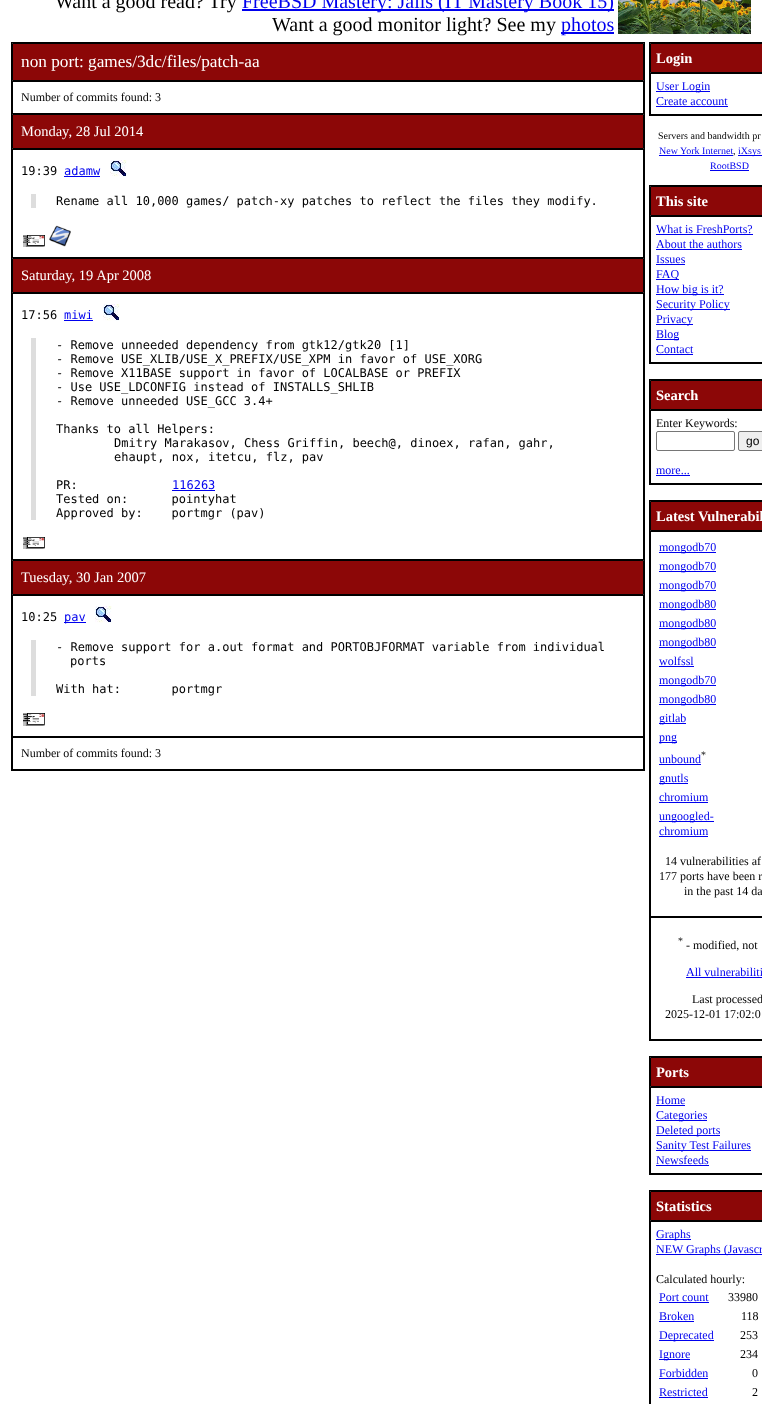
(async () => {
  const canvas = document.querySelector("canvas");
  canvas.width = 762;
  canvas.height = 1404;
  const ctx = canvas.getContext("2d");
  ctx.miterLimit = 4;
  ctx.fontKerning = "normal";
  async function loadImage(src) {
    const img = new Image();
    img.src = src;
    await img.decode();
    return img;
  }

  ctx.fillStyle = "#ffffff";
  ctx.fillRect(0, 0, 762, 1404);
  ctx.fillStyle = "#0000ee";
  ctx.fillRect(242, 9, 372, 2);
  ctx.fillRect(561, 32, 53, 2);
  ctx.drawImage(await loadImage("img/1.png"), 618, 0, 133, 34);
  ctx.strokeStyle = "#000000";
  ctx.strokeRect(11.5, 42.5, 633, 728);
  ctx.fillStyle = "#8c0707";
  ctx.beginPath();
  ctx.rect(12.5, 43.5, 631, 37);
  ctx.fill();
  ctx.stroke();
  ctx.strokeRect(12.5, 81.5, 631, 32);
  ctx.beginPath();
  ctx.rect(12.5, 114.5, 631, 34);
  ctx.fill();
  ctx.stroke();
  ctx.strokeRect(12.5, 149.5, 631, 108);
  ctx.fillStyle = "#0000ee";
  ctx.fillRect(64, 176, 36, 1);
  ctx.drawImage(await loadImage("img/2.png"), 110, 160, 17, 17);
  ctx.fillStyle = "#dddddd";
  ctx.fillRect(31, 194, 5, 14);
  ctx.drawImage(await loadImage("img/3.png"), 23, 235, 22, 12);
  ctx.drawImage(await loadImage("img/4.png"), 49, 225, 22, 22);
  ctx.fillStyle = "#8c0707";
  ctx.beginPath();
  ctx.rect(12.5, 258.5, 631, 34);
  ctx.fill();
  ctx.stroke();
  ctx.strokeRect(12.5, 293.5, 631, 266);
  ctx.fillStyle = "#0000ee";
  ctx.fillRect(64, 320, 29, 1);
  ctx.drawImage(await loadImage("img/2.png"), 103, 304, 17, 17);
  ctx.fillStyle = "#dddddd";
  ctx.fillRect(31, 338, 5, 182);
  ctx.fillStyle = "#0000ee";
  ctx.fillRect(172, 490, 43, 1);
  ctx.drawImage(await loadImage("img/3.png"), 23, 537, 22, 12);
  ctx.fillStyle = "#8c0707";
  ctx.beginPath();
  ctx.rect(12.5, 560.5, 631, 34);
  ctx.fill();
  ctx.stroke();
  ctx.strokeRect(12.5, 595.5, 631, 141);
  ctx.fillStyle = "#0000ee";
  ctx.fillRect(64, 622, 22, 1);
  ctx.drawImage(await loadImage("img/2.png"), 95, 606, 17, 17);
  ctx.fillStyle = "#dddddd";
  ctx.fillRect(31, 640, 5, 56);
  ctx.drawImage(await loadImage("img/5.png"), 23, 713, 22, 13);
  ctx.strokeRect(12.5, 737.5, 631, 32);
  ctx.strokeRect(649.5, 42.5, 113, 73);
  ctx.fillStyle = "#8c0707";
  ctx.beginPath();
  ctx.rect(650.5, 43.5, 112, 29);
  ctx.fill();
  ctx.stroke();
  ctx.strokeRect(650.5, 73.5, 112, 41);
  for (const [x, y, w, h, color] of [
    [656, 91, 54, 1, "#0000ee"],
    [656, 106, 72, 1, "#0000ee"],
    [659, 155, 74, 1, "#0000ee"],
    [738, 155, 24, 1, "#0000ee"],
    [710, 170, 39, 1, "#0000ee"],
  ]) {
    ctx.fillStyle = color;
    ctx.fillRect(x, y, w, h);
  }
  ctx.strokeRect(649.5, 185.5, 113, 178);
  ctx.fillStyle = "#8c0707";
  ctx.beginPath();
  ctx.rect(650.5, 186.5, 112, 29);
  ctx.fill();
  ctx.stroke();
  ctx.strokeRect(650.5, 216.5, 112, 146);
  for (const [x, y, w, h, color] of [
    [656, 234, 97, 1, "#0000ee"],
    [656, 249, 86, 1, "#0000ee"],
    [656, 264, 29, 1, "#0000ee"],
    [656, 279, 23, 1, "#0000ee"],
    [656, 294, 68, 1, "#0000ee"],
    [656, 309, 74, 1, "#0000ee"],
    [656, 324, 37, 1, "#0000ee"],
    [656, 339, 23, 1, "#0000ee"],
    [656, 354, 37, 1, "#0000ee"],
  ]) {
    ctx.fillStyle = color;
    ctx.fillRect(x, y, w, h);
  }
  ctx.strokeRect(649.5, 379.5, 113, 105);
  ctx.fillStyle = "#8c0707";
  ctx.beginPath();
  ctx.rect(650.5, 380.5, 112, 29);
  ctx.fill();
  ctx.stroke();
  ctx.strokeRect(650.5, 410.5, 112, 73);
  ctx.beginPath();
  ctx.roundRect(656.5, 431.5, 78, 19, 1.5);
  ctx.strokeStyle = "#767676";
  ctx.stroke();
  ctx.fillStyle = "#efefef";
  ctx.beginPath();
  ctx.roundRect(738.5, 431.5, 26, 19, 1.5);
  ctx.fill();
  ctx.stroke();
  ctx.fillStyle = "#0000ee";
  ctx.fillRect(656, 475, 34, 1);
  ctx.strokeStyle = "#000000";
  ctx.strokeRect(649.5, 500.5, 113, 540);
  ctx.fillStyle = "#8c0707";
  ctx.beginPath();
  ctx.rect(650.5, 501.5, 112, 29);
  ctx.fill();
  ctx.stroke();
  ctx.strokeRect(650.5, 531.5, 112, 385);
  for (const [x, y, w, h, color] of [
    [659, 552, 57, 1, "#0000ee"],
    [659, 571, 57, 1, "#0000ee"],
    [659, 590, 57, 1, "#0000ee"],
    [659, 609, 57, 1, "#0000ee"],
    [659, 628, 57, 1, "#0000ee"],
    [659, 647, 57, 1, "#0000ee"],
    [659, 666, 35, 1, "#0000ee"],
    [659, 685, 57, 1, "#0000ee"],
    [659, 704, 57, 1, "#0000ee"],
    [659, 723, 27, 1, "#0000ee"],
    [659, 742, 18, 1, "#0000ee"],
    [659, 764, 42, 1, "#0000ee"],
    [659, 783, 29, 1, "#0000ee"],
    [659, 802, 49, 1, "#0000ee"],
    [659, 821, 55, 1, "#0000ee"],
    [659, 836, 49, 1, "#0000ee"],
  ]) {
    ctx.fillStyle = color;
    ctx.fillRect(x, y, w, h);
  }
  ctx.strokeRect(650.5, 917.5, 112, 122);
  ctx.fillRect(686, 977, 76, 1);
  ctx.strokeRect(649.5, 1056.5, 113, 118);
  ctx.fillStyle = "#8c0707";
  ctx.beginPath();
  ctx.rect(650.5, 1057.5, 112, 29);
  ctx.fill();
  ctx.stroke();
  ctx.strokeRect(650.5, 1087.5, 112, 86);
  for (const [x, y, w, h, color] of [
    [656, 1105, 29, 1, "#0000ee"],
    [656, 1120, 51, 1, "#0000ee"],
    [656, 1135, 64, 1, "#0000ee"],
    [656, 1150, 95, 1, "#0000ee"],
    [656, 1165, 53, 1, "#0000ee"],
  ]) {
    ctx.fillStyle = color;
    ctx.fillRect(x, y, w, h);
  }
  ctx.strokeRect(649.5, 1190.5, 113, 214);
  ctx.fillStyle = "#8c0707";
  ctx.beginPath();
  ctx.rect(650.5, 1191.5, 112, 29);
  ctx.fill();
  ctx.stroke();
  ctx.strokeRect(650.5, 1221.5, 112, 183);
  for (const [x, y, w, h, color] of [
    [656, 1239, 35, 1, "#0000ee"],
    [656, 1254, 106, 1, "#0000ee"],
    [659, 1302, 50, 1, "#0000ee"],
    [659, 1321, 35, 1, "#0000ee"],
    [659, 1340, 55, 1, "#0000ee"],
    [659, 1359, 31, 1, "#0000ee"],
    [659, 1378, 49, 1, "#0000ee"],
    [659, 1397, 49, 1, "#0000ee"],
  ]) {
    ctx.fillStyle = color;
    ctx.fillRect(x, y, w, h);
  }
  ctx.font = "20px Liberation Serif";
  ctx.fillStyle = "#000000";
  ctx.fillText("Want a good read? Try", 55, 8);
  ctx.fillStyle = "#0000ee";
  ctx.fillText("FreeBSD Mastery: Jails (IT Mastery Book 15)", 242, 8);
  ctx.fillStyle = "#000000";
  ctx.fillText("Want a good monitor light? See my", 272, 31);
  ctx.fillStyle = "#0000ee";
  ctx.fillText("photos", 561, 31);
  ctx.font = "17.25px Liberation Serif";
  ctx.fillStyle = "#ffffff";
  ctx.fillText("non port: games/3dc/files/patch-aa", 21, 67);
  ctx.font = "12px Liberation Serif";
  ctx.fillStyle = "#000000";
  ctx.fillText("Number of commits found: 3", 21, 101);
  ctx.font = "14.5px Liberation Serif";
  ctx.fillStyle = "#ffffff";
  ctx.fillText("Monday, 28 Jul 2014", 21, 136);
  ctx.font = "12px DejaVu Sans Mono";
  ctx.fillStyle = "#000000";
  ctx.fillText("19:39", 21, 175);
  ctx.fillStyle = "#0000ee";
  ctx.fillText("adamw", 64, 175);
  ctx.fillStyle = "#000000";
  ctx.fillText("Rename all 10,000 games/ patch-xy patches to reflect the files they modify.", 56, 205);
  ctx.font = "14.5px Liberation Serif";
  ctx.fillStyle = "#ffffff";
  ctx.fillText("Saturday, 19 Apr 2008", 21, 280);
  ctx.font = "12px DejaVu Sans Mono";
  ctx.fillStyle = "#000000";
  ctx.fillText("17:56", 21, 319);
  ctx.fillStyle = "#0000ee";
  ctx.fillText("miwi", 64, 319);
  ctx.fillStyle = "#000000";
  for (const [text, x, y] of [
    ["- Remove unneeded dependency from gtk12/gtk20 [1]", 56, 349],
    ["- Remove USE_XLIB/USE_X_PREFIX/USE_XPM in favor of USE_XORG", 56, 363],
    ["- Remove X11BASE support in favor of LOCALBASE or PREFIX", 56, 377],
    ["- Use USE_LDCONFIG instead of INSTALLS_SHLIB", 56, 391],
    ["- Remove unneeded USE_GCC 3.4+", 56, 405],
    ["Thanks to all Helpers:", 56, 433],
    ["Dmitry Marakasov, Chess Griffin, beech@, dinoex, rafan, gahr,", 114, 447],
    ["ehaupt, nox, itetcu, flz, pav", 114, 461],
    ["PR:", 56, 489],
  ]) {
    ctx.fillText(text, x, y);
  }
  ctx.fillStyle = "#0000ee";
  ctx.fillText("116263", 172, 489);
  ctx.fillStyle = "#000000";
  ctx.fillText("Tested on:      pointyhat", 56, 503);
  ctx.fillText("Approved by:    portmgr (pav)", 56, 517);
  ctx.font = "14.5px Liberation Serif";
  ctx.fillStyle = "#ffffff";
  ctx.fillText("Tuesday, 30 Jan 2007", 21, 582);
  ctx.font = "12px DejaVu Sans Mono";
  ctx.fillStyle = "#000000";
  ctx.fillText("10:25", 21, 621);
  ctx.fillStyle = "#0000ee";
  ctx.fillText("pav", 64, 621);
  ctx.fillStyle = "#000000";
  for (const [text, x, y] of [
    ["- Remove support for a.out format and PORTOBJFORMAT variable from individual", 56, 651],
    ["ports", 70, 665],
    ["With hat:       portmgr", 56, 693],
  ]) {
    ctx.fillText(text, x, y);
  }
  ctx.font = "12px Liberation Serif";
  ctx.fillText("Number of commits found: 3", 21, 757);
  ctx.font = "bold 14.5px Liberation Serif";
  ctx.fillStyle = "#ffffff";
  ctx.fillText("Login", 656, 63);
  ctx.font = "12px Liberation Serif";
  ctx.fillStyle = "#0000ee";
  ctx.fillText("User Login", 656, 90);
  ctx.fillText("Create account", 656, 105);
  ctx.font = "10px Liberation Serif";
  ctx.fillStyle = "#000000";
  ctx.fillText("Servers and bandwidth pr", 658, 139);
  ctx.fillStyle = "#0000ee";
  ctx.fillText("New York Internet", 659, 154);
  ctx.fillText("iXsys", 738, 154);
  ctx.fillStyle = "#000000";
  ctx.fillText(",", 733, 154);
  ctx.fillStyle = "#0000ee";
  ctx.fillText("RootBSD", 710, 169);
  ctx.font = "bold 14.5px Liberation Serif";
  ctx.fillStyle = "#ffffff";
  ctx.fillText("This site", 656, 206);
  ctx.font = "12px Liberation Serif";
  ctx.fillStyle = "#0000ee";
  for (const [text, x, y] of [
    ["What is FreshPorts?", 656, 233],
    ["About the authors", 656, 248],
    ["Issues", 656, 263],
    ["FAQ", 656, 278],
    ["How big is it?", 656, 293],
    ["Security Policy", 656, 308],
    ["Privacy", 656, 323],
    ["Blog", 656, 338],
    ["Contact", 656, 353],
  ]) {
    ctx.fillText(text, x, y);
  }
  ctx.font = "bold 14.5px Liberation Serif";
  ctx.fillStyle = "#ffffff";
  ctx.fillText("Search", 656, 400);
  ctx.font = "12px Liberation Serif";
  ctx.fillStyle = "#000000";
  ctx.fillText("Enter Keywords:", 656, 427);
  ctx.font = "12px Liberation Sans";
  ctx.fillText("go", 746, 445);
  ctx.font = "12px Liberation Serif";
  ctx.fillStyle = "#0000ee";
  ctx.fillText("more...", 656, 474);
  ctx.font = "bold 14.5px Liberation Serif";
  ctx.fillStyle = "#ffffff";
  ctx.fillText("Latest Vulnerabil", 656, 521);
  ctx.font = "12px Liberation Serif";
  ctx.fillStyle = "#0000ee";
  for (const [text, x, y] of [
    ["mongodb70", 659, 551],
    ["mongodb70", 659, 570],
    ["mongodb70", 659, 589],
    ["mongodb80", 659, 608],
    ["mongodb80", 659, 627],
    ["mongodb80", 659, 646],
    ["wolfssl", 659, 665],
    ["mongodb70", 659, 684],
    ["mongodb80", 659, 703],
    ["gitlab", 659, 722],
    ["png", 659, 741],
  ]) {
    ctx.fillText(text, x, y);
  }
  ctx.font = "10px Liberation Serif";
  ctx.fillStyle = "#000000";
  ctx.fillText("*", 701, 758);
  ctx.font = "12px Liberation Serif";
  ctx.fillStyle = "#0000ee";
  for (const [text, x, y] of [
    ["unbound", 659, 763],
    ["gnutls", 659, 782],
    ["chromium", 659, 801],
    ["ungoogled-", 659, 820],
    ["chromium", 659, 835],
  ]) {
    ctx.fillText(text, x, y);
  }
  ctx.fillStyle = "#000000";
  for (const [text, x, y] of [
    ["14 vulnerabilities af", 665, 865],
    ["177 ports have been r", 659, 880],
    ["in the past 14 da", 684, 895],
  ]) {
    ctx.fillText(text, x, y);
  }
  ctx.font = "10px Liberation Serif";
  ctx.fillText("*", 678, 944);
  ctx.font = "12px Liberation Serif";
  ctx.fillText("- modified, not", 686, 949);
  ctx.fillStyle = "#0000ee";
  ctx.fillText("All vulnerabiliti", 686, 976);
  ctx.fillStyle = "#000000";
  ctx.fillText("Last processed", 692, 1003);
  ctx.fillText("2025-12-01 17:02:0", 665, 1018);
  ctx.font = "bold 14.5px Liberation Serif";
  ctx.fillStyle = "#ffffff";
  ctx.fillText("Ports", 656, 1077);
  ctx.font = "12px Liberation Serif";
  ctx.fillStyle = "#0000ee";
  for (const [text, x, y] of [
    ["Home", 656, 1104],
    ["Categories", 656, 1119],
    ["Deleted ports", 656, 1134],
    ["Sanity Test Failures", 656, 1149],
    ["Newsfeeds", 656, 1164],
  ]) {
    ctx.fillText(text, x, y);
  }
  ctx.font = "bold 14.5px Liberation Serif";
  ctx.fillStyle = "#ffffff";
  ctx.fillText("Statistics", 656, 1211);
  ctx.font = "12px Liberation Serif";
  ctx.fillStyle = "#0000ee";
  ctx.fillText("Graphs", 656, 1238);
  ctx.fillText("NEW Graphs (Javascr", 656, 1253);
  ctx.fillStyle = "#000000";
  ctx.fillText("Calculated hourly:", 656, 1283);
  ctx.fillStyle = "#0000ee";
  ctx.fillText("Port count", 659, 1301);
  ctx.fillStyle = "#000000";
  ctx.fillText("33980", 728, 1301);
  ctx.fillStyle = "#0000ee";
  ctx.fillText("Broken", 659, 1320);
  ctx.fillStyle = "#000000";
  ctx.fillText("118", 741, 1320);
  ctx.fillStyle = "#0000ee";
  ctx.fillText("Deprecated", 659, 1339);
  ctx.fillStyle = "#000000";
  ctx.fillText("253", 740, 1339);
  ctx.fillStyle = "#0000ee";
  ctx.fillText("Ignore", 659, 1358);
  ctx.fillStyle = "#000000";
  ctx.fillText("234", 740, 1358);
  ctx.fillStyle = "#0000ee";
  ctx.fillText("Forbidden", 659, 1377);
  ctx.fillStyle = "#000000";
  ctx.fillText("0", 752, 1377);
  ctx.fillStyle = "#0000ee";
  ctx.fillText("Restricted", 659, 1396);
  ctx.fillStyle = "#000000";
  ctx.fillText("2", 752, 1396);
})();
